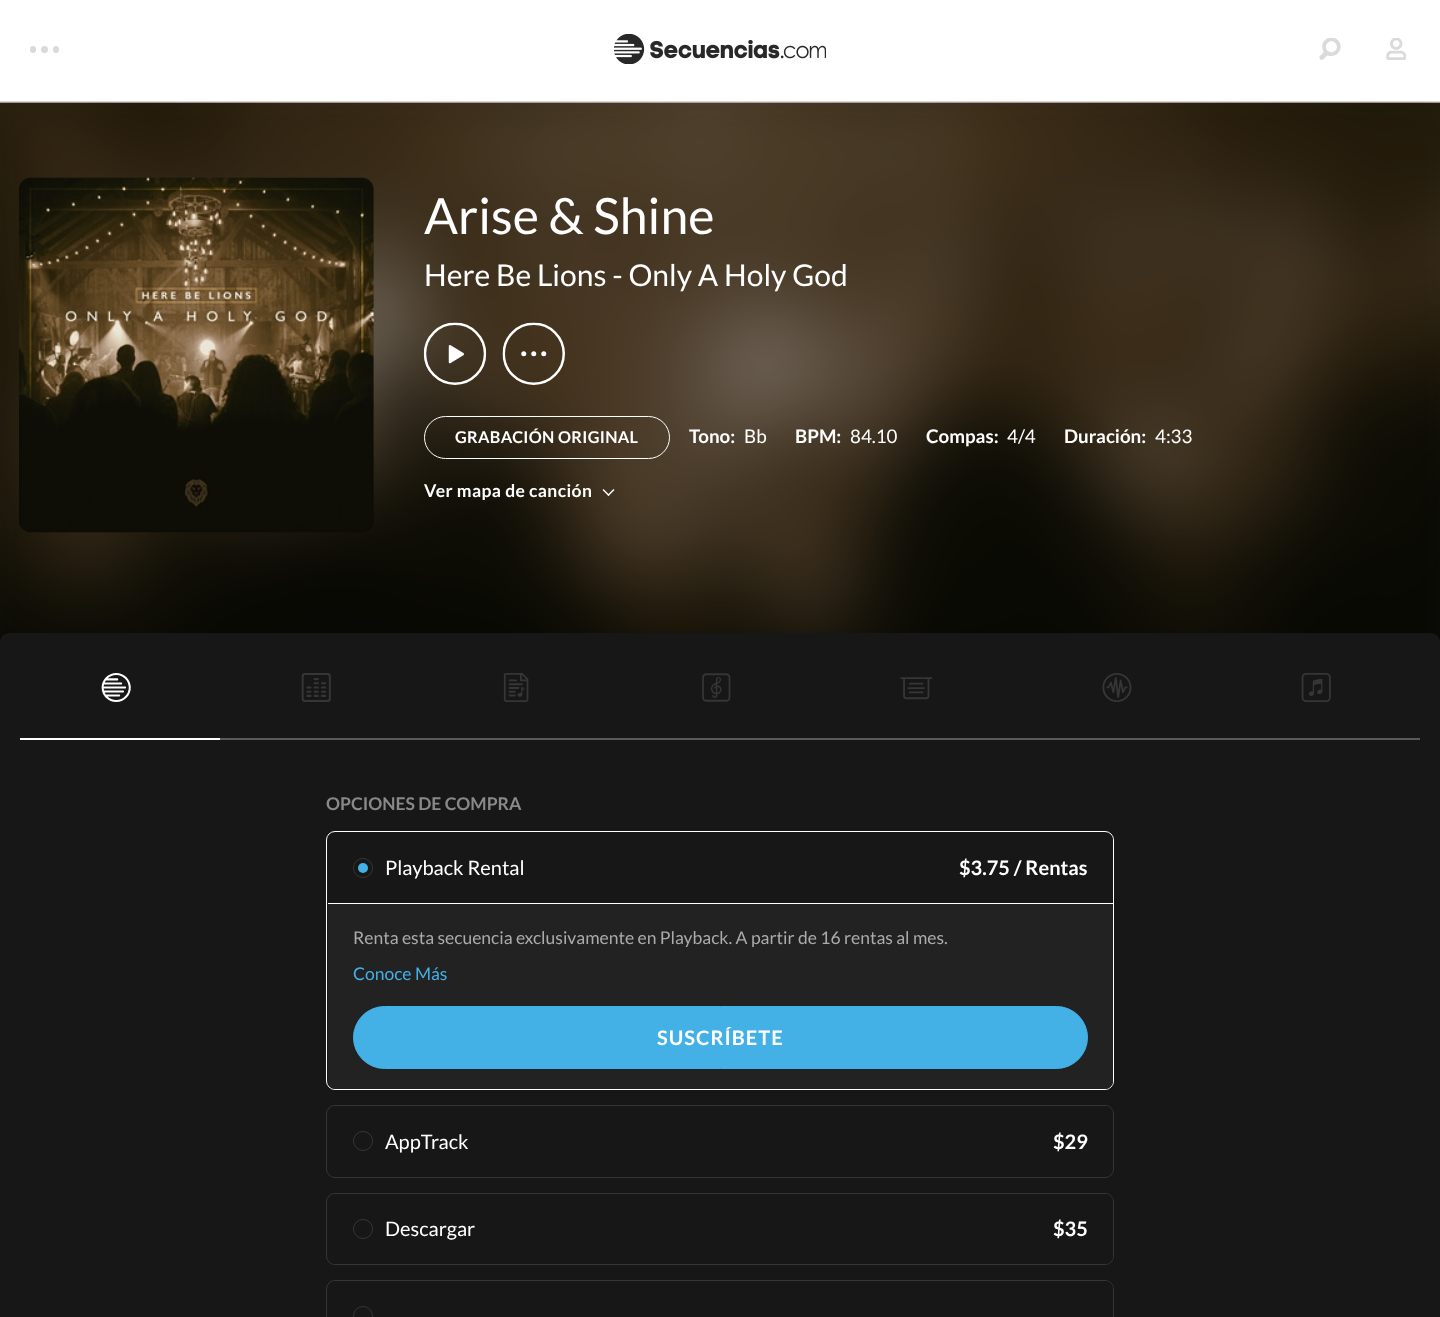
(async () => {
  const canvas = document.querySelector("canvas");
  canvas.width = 1440;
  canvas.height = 1317;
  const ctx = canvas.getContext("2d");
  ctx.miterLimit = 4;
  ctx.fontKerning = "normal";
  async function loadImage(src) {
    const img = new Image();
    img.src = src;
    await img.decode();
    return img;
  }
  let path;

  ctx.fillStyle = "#ffffff";
  ctx.fillRect(0, 0, 1440, 1317);
  ctx.fillStyle = "#dadada";
  ctx.fillRect(0, 101, 1440, 1);
  ctx.beginPath();
  ctx.roundRect(30, 46, 6, 7, 3);
  ctx.fill();
  ctx.beginPath();
  ctx.arc(44.5, 49.5, 3.5, 0, Math.PI * 2);
  ctx.fill();
  ctx.beginPath();
  ctx.roundRect(53, 46, 6, 7, 3);
  ctx.fill();
  ctx.drawImage(await loadImage("img/1.png"), 614, 34, 212, 30);
  ctx.drawImage(await loadImage("img/2.png"), 1319, 38, 22, 22);
  ctx.drawImage(await loadImage("img/3.png"), 1386, 38, 20, 22);
  ctx.fillStyle = "#171717";
  ctx.fillRect(0, 740, 1440, 577);
  ctx.save();
  ctx.beginPath();
  ctx.rect(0, 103, 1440, 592);
  ctx.clip();
  ctx.fillStyle = "#161616";
  ctx.filter = "blur(42.5px)";
  ctx.beginPath();
  ctx.rect(-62, 40, 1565, 718);
  ctx.fill();
  ctx.filter = "none";
  ctx.restore();
  ctx.drawImage(await loadImage("img/4.png"), 0, 102, 1440, 540);
  ctx.drawImage(await loadImage("img/5.png"), 19, 177, 355, 356);
  ctx.drawImage(await loadImage("img/6.png"), 423, 322, 64, 63);
  ctx.drawImage(await loadImage("img/7.png"), 502, 322, 63, 63);
  ctx.beginPath();
  ctx.roundRect(424.5, 416.5, 245, 42, 21);
  ctx.strokeStyle = "#ffffff";
  ctx.stroke();
  ctx.fillStyle = "#ffffff";
  path = new Path2D("M613.5 489L614.5 490L608.5 496L607.5 495Z");
  ctx.fill(path);
  path = new Path2D("M602.5 490L603.5 489L609.5 495L608.5 496Z");
  ctx.fill(path);
  ctx.fillStyle = "#171717";
  ctx.beginPath();
  ctx.roundRect(0, 633, 1440, 107, [9, 9, 0, 0]);
  ctx.fill();
  ctx.fillStyle = "#ffffff";
  ctx.fillRect(20, 738, 200, 2);
  ctx.drawImage(await loadImage("img/8.png"), 101, 673, 30, 29);
  ctx.fillStyle = "#5a5a5a";
  ctx.fillRect(220, 738, 1200, 2);
  ctx.drawImage(await loadImage("img/9.png"), 301, 673, 30, 29);
  ctx.drawImage(await loadImage("img/10.png"), 503, 673, 26, 29);
  ctx.drawImage(await loadImage("img/11.png"), 702, 673, 29, 29);
  ctx.drawImage(await loadImage("img/12.png"), 900, 677, 33, 23);
  ctx.drawImage(await loadImage("img/13.png"), 1102, 673, 30, 29);
  ctx.drawImage(await loadImage("img/14.png"), 1301, 673, 30, 29);
  ctx.beginPath();
  ctx.roundRect(326.5, 831.5, 787, 258, 8.5);
  ctx.stroke();
  ctx.fillStyle = "#171717";
  ctx.beginPath();
  ctx.roundRect(328, 833, 785, 71, [8, 8, 0, 0]);
  ctx.fill();
  ctx.fillStyle = "#ffffff";
  ctx.fillRect(328, 903, 785, 1);
  ctx.beginPath();
  ctx.arc(363, 868, 9.5, 0, Math.PI * 2);
  ctx.strokeStyle = "#363636";
  ctx.stroke();
  ctx.fillStyle = "#43b1e6";
  ctx.beginPath();
  ctx.arc(363, 868, 5, 0, Math.PI * 2);
  ctx.fill();
  ctx.fillStyle = "#222222";
  ctx.beginPath();
  ctx.roundRect(328, 904, 785, 185, [0, 0, 8, 8]);
  ctx.fill();
  ctx.fillStyle = "#43b1e6";
  ctx.beginPath();
  ctx.roundRect(353.5, 1006.5, 734, 62, 31);
  ctx.fill();
  ctx.strokeStyle = "#43b1e6";
  ctx.stroke();
  ctx.beginPath();
  ctx.roundRect(326.5, 1105.5, 787, 72, 8.5);
  ctx.strokeStyle = "#363636";
  ctx.stroke();
  ctx.fillStyle = "#171717";
  ctx.beginPath();
  ctx.roundRect(328, 1106, 785, 70, 8);
  ctx.fill();
  ctx.beginPath();
  ctx.arc(363, 1141, 9.5, 0, Math.PI * 2);
  ctx.stroke();
  ctx.beginPath();
  ctx.roundRect(326.5, 1193.5, 787, 71, 8.5);
  ctx.stroke();
  ctx.beginPath();
  ctx.roundRect(328, 1194, 785, 70, 8);
  ctx.fill();
  ctx.beginPath();
  ctx.arc(363, 1229, 9.5, 0, Math.PI * 2);
  ctx.stroke();
  ctx.beginPath();
  ctx.roundRect(326.5, 1280.5, 787, 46, 8.5);
  ctx.stroke();
  ctx.beginPath();
  ctx.roundRect(328, 1281, 785, 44, 8);
  ctx.fill();
  ctx.beginPath();
  ctx.arc(363, 1316, 9.5, 0, Math.PI * 2);
  ctx.stroke();
  ctx.font = "50px Lato";
  ctx.fillStyle = "#ffffff";
  ctx.fillText("Arise & Shine", 424, 234);
  ctx.font = "30px Lato";
  ctx.fillText("Here Be Lions - Only A Holy God", 424, 286);
  ctx.letterSpacing = "0.3px";
  ctx.font = "bold 16.25px Lato";
  ctx.fillText("GRABACIÓN ORIGINAL", 455, 443);
  ctx.letterSpacing = "0px";
  ctx.font = "bold 18.75px Lato";
  ctx.fillText("Tono:", 689, 443);
  ctx.font = "18.75px Lato";
  ctx.fillText("Bb", 744, 443);
  ctx.font = "bold 18.75px Lato";
  ctx.fillText("BPM:", 795, 443);
  ctx.font = "18.75px Lato";
  ctx.fillText("84.10", 850, 443);
  ctx.font = "bold 18.75px Lato";
  ctx.fillText("Compas:", 926, 443);
  ctx.font = "18.75px Lato";
  ctx.fillText("4/4", 1007, 443);
  ctx.font = "bold 18.75px Lato";
  ctx.fillText("Duración:", 1064, 443);
  ctx.font = "18.75px Lato";
  ctx.fillText("4:33", 1155, 443);
  ctx.letterSpacing = "0.4px";
  ctx.font = "bold 17.5px Lato";
  ctx.fillText("Ver mapa de canción", 424, 497);
  ctx.letterSpacing = "0px";
  ctx.fillStyle = "#898989";
  ctx.fillText("OPCIONES DE COMPRA", 326, 810);
  ctx.font = "20px Lato";
  ctx.fillStyle = "#ffffff";
  ctx.fillText("Playback Rental", 385, 875);
  ctx.font = "bold 20px Lato";
  ctx.fillText("$3.75 / Rentas", 959, 875);
  ctx.font = "17.5px Lato";
  ctx.fillStyle = "#ababab";
  ctx.fillText("Renta esta secuencia exclusivamente en Playback. A partir de 16 rentas al mes.", 353, 944);
  ctx.fillStyle = "#43b1e6";
  ctx.fillText("Conoce Más", 353, 980);
  ctx.letterSpacing = "1px";
  ctx.font = "bold 20px Lato";
  ctx.fillStyle = "#ffffff";
  ctx.fillText("SUSCRÍBETE", 657, 1045);
  ctx.letterSpacing = "0px";
  ctx.font = "20px Lato";
  ctx.fillText("AppTrack", 385, 1149);
  ctx.font = "bold 20px Lato";
  ctx.fillText("$29", 1053, 1149);
  ctx.font = "20px Lato";
  ctx.fillText("Descargar", 385, 1236);
  ctx.font = "bold 20px Lato";
  ctx.fillText("$35", 1053, 1236);
})();
